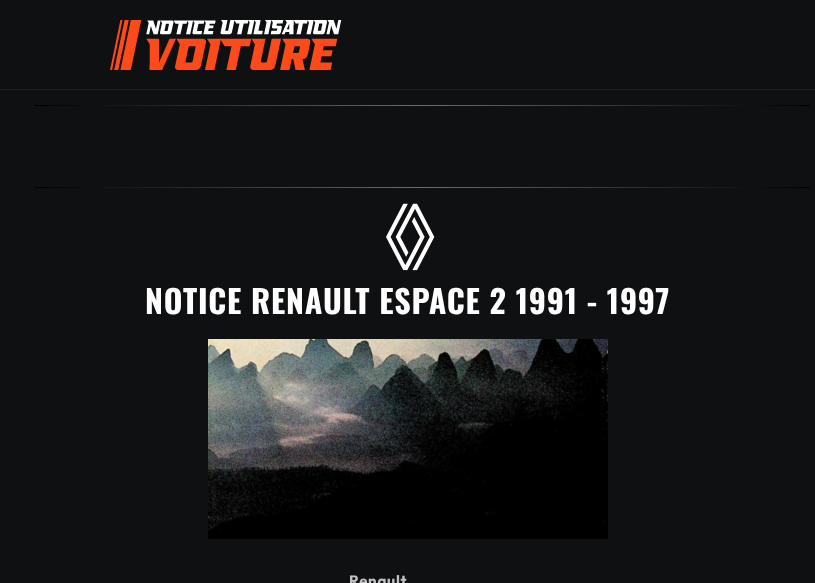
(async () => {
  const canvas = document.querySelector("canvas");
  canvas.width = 815;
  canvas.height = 583;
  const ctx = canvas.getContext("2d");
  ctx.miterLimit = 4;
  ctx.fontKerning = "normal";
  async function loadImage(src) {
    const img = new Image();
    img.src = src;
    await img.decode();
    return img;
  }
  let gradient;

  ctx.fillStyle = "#0f1012";
  ctx.fillRect(0, 0, 815, 583);
  ctx.fillStyle = "#351913";
  ctx.fillRect(0, 89, 815, 1);
  ctx.drawImage(await loadImage("img/1.png"), 110, 20, 232, 50);
  gradient = ctx.createLinearGradient(35, 106, 810, 105);
  gradient.addColorStop(0, "#000000");
  gradient.addColorStop(0.5, "#f0352c");
  gradient.addColorStop(1, "#000000");
  ctx.fillStyle = gradient;
  ctx.fillRect(35, 105, 775, 1);
  gradient = ctx.createLinearGradient(35, 188, 810, 187);
  gradient.addColorStop(0, "#000000");
  gradient.addColorStop(0.5, "#f0352c");
  gradient.addColorStop(1, "#000000");
  ctx.fillStyle = gradient;
  ctx.fillRect(35, 187, 775, 1);
  ctx.drawImage(await loadImage("img/2.png"), 386, 203, 49, 68);
  ctx.drawImage(await loadImage("img/3.png"), 208, 339, 400, 200);
  ctx.letterSpacing = "0.75px";
  ctx.font = "bold 32px Oswald";
  ctx.fillStyle = "#ffffff";
  ctx.fillText("NOTICE RENAULT ESPACE 2 1991 - 1997", 145, 314);
  ctx.font = "bold 15px Outfit";
  ctx.fillStyle = "#c3c3c4";
  ctx.fillText("Renault", 349, 586);
})();
